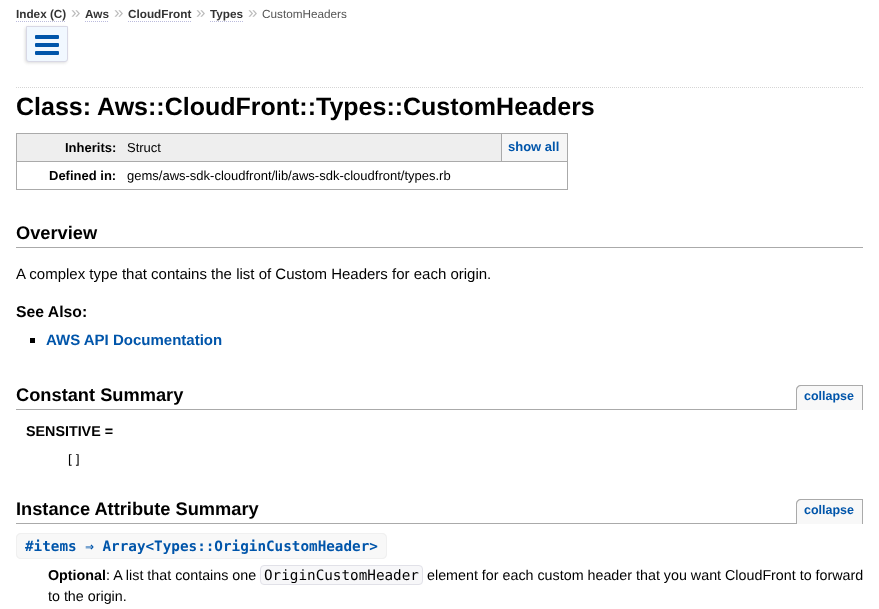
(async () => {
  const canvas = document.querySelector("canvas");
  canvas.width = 879;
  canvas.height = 609;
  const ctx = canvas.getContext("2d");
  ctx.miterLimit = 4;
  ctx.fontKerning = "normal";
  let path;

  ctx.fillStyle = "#ffffff";
  ctx.fillRect(0, 0, 879, 609);
  ctx.fillStyle = "#dddddd";
  ctx.filter = "blur(1.5px)";
  ctx.beginPath();
  ctx.roundRect(25, 27, 42, 36, 3);
  ctx.fill();
  ctx.filter = "none";
  path = new Path2D("M16 21.5H66");
  ctx.strokeStyle = "#bbbbdd";
  ctx.setLineDash([1, 1]);
  ctx.stroke(path);
  path = new Path2D("M85 21.5H109");
  ctx.stroke(path);
  path = new Path2D("M128 21.5H192");
  ctx.stroke(path);
  path = new Path2D("M210 21.5H244");
  ctx.stroke(path);
  ctx.fillStyle = "#f1f8ff";
  ctx.beginPath();
  ctx.roundRect(26.5, 26.5, 41, 35, [0, 0, 2.5, 2.5]);
  ctx.fill();
  ctx.strokeStyle = "#d8d8e5";
  ctx.setLineDash([]);
  ctx.stroke();
  ctx.fillStyle = "#0055aa";
  ctx.beginPath();
  ctx.roundRect(35, 35, 24, 4, 1);
  ctx.fill();
  ctx.beginPath();
  ctx.roundRect(35, 43, 24, 4, 1);
  ctx.fill();
  ctx.beginPath();
  ctx.roundRect(35, 51, 24, 4, 1);
  ctx.fill();
  path = new Path2D("M16 87.5H863");
  ctx.strokeStyle = "#d5d5d5";
  ctx.setLineDash([1, 1]);
  ctx.stroke(path);
  for (const [x, y, w, h, color] of [
    [17, 134, 484, 27, "#eeeeee"],
    [16, 133, 552, 1, "#aaaaaa"],
    [16, 133, 1, 28, "#aaaaaa"],
    [16, 161, 552, 1, "#aaaaaa"],
    [567, 133, 1, 57, "#aaaaaa"],
    [502, 134, 65, 27, "#f6f6f6"],
    [501, 134, 1, 27, "#aaaaaa"],
    [16, 189, 111, 1, "#aaaaaa"],
    [16, 161, 1, 29, "#aaaaaa"],
    [127, 189, 441, 1, "#aaaaaa"],
    [16, 247, 847, 1, "#aaaaaa"],
    [30, 338, 5, 5, "#000000"],
    [16, 409, 780, 1, "#aaaaaa"],
  ]) {
    ctx.fillStyle = color;
    ctx.fillRect(x, y, w, h);
  }
  ctx.fillStyle = "#f8f8f8";
  ctx.beginPath();
  ctx.roundRect(796, 385, 67, 25, [5, 0, 0, 0]);
  ctx.fill();
  ctx.fillStyle = "#aaaaaa";
  path = new Path2D("M801 385H863V410H796V390C796 387 798 385 801 385ZM801 386H862V410H797V390C797 388 799 386 801 386Z");
  ctx.fill(path, "evenodd");
  ctx.fillRect(16, 523, 780, 1);
  ctx.fillStyle = "#f8f8f8";
  ctx.beginPath();
  ctx.roundRect(796, 499, 67, 25, [5, 0, 0, 0]);
  ctx.fill();
  ctx.fillStyle = "#aaaaaa";
  path = new Path2D("M801 499H863V524H796V504C796 501 798 499 801 499ZM801 500H862V524H797V504C797 502 799 500 801 500Z");
  ctx.fill(path, "evenodd");
  ctx.fillStyle = "#f8f8f8";
  ctx.beginPath();
  ctx.roundRect(16, 533, 17, 26, [5, 0, 0, 5]);
  ctx.fill();
  ctx.fillStyle = "#f0f0f0";
  path = new Path2D("M21 533H33V559H21C18 559 16 557 16 554V538C16 535 18 533 21 533ZM21 534H33V558H21C19 558 17 556 17 554V538C17 536 19 534 21 534Z");
  ctx.fill(path, "evenodd");
  for (const [x, y, w, h, color] of [
    [33, 534, 43, 24, "#f8f8f8"],
    [33, 533, 43, 1, "#f0f0f0"],
    [33, 558, 43, 1, "#f0f0f0"],
  ]) {
    ctx.fillStyle = color;
    ctx.fillRect(x, y, w, h);
  }
  ctx.fillStyle = "#f8f8f8";
  ctx.beginPath();
  ctx.roundRect(76, 533, 311, 26, [0, 5, 5, 0]);
  ctx.fill();
  ctx.fillStyle = "#f0f0f0";
  path = new Path2D("M76 533H382C385 533 387 535 387 538V554C387 557 385 559 382 559H76ZM76 534H382C384 534 386 536 386 538V554C386 556 384 558 382 558H76Z");
  ctx.fill(path, "evenodd");
  ctx.fillStyle = "#f7f7f9";
  ctx.beginPath();
  ctx.roundRect(260.5, 565.5, 162, 19, 3.5);
  ctx.fill();
  ctx.strokeStyle = "#e1e1e8";
  ctx.setLineDash([]);
  ctx.stroke();
  ctx.font = "bold 11.75px Liberation Sans";
  ctx.fillStyle = "#333333";
  ctx.fillText("Index (C)", 16, 18);
  ctx.font = "17px Liberation Sans";
  ctx.fillStyle = "#bbbbbb";
  ctx.fillText("»", 71, 18);
  ctx.font = "bold 11.75px Liberation Sans";
  ctx.fillStyle = "#333333";
  ctx.fillText("Aws", 85, 18);
  ctx.font = "17px Liberation Sans";
  ctx.fillStyle = "#bbbbbb";
  ctx.fillText("»", 114, 18);
  ctx.font = "bold 11.75px Liberation Sans";
  ctx.fillStyle = "#333333";
  ctx.fillText("CloudFront", 128, 18);
  ctx.font = "17px Liberation Sans";
  ctx.fillStyle = "#bbbbbb";
  ctx.fillText("»", 196, 18);
  ctx.font = "bold 11.75px Liberation Sans";
  ctx.fillStyle = "#333333";
  ctx.fillText("Types", 210, 18);
  ctx.font = "17px Liberation Sans";
  ctx.fillStyle = "#bbbbbb";
  ctx.fillText("»", 248, 18);
  ctx.font = "11.75px Liberation Sans";
  ctx.fillStyle = "#555555";
  ctx.fillText("CustomHeaders", 262, 18);
  ctx.font = "bold 25px Liberation Sans";
  ctx.fillStyle = "#000000";
  ctx.fillText("Class: Aws::CloudFront::Types::CustomHeaders", 16, 115);
  ctx.font = "bold 13px Liberation Sans";
  ctx.fillText("Inherits:", 65, 152);
  ctx.font = "13px Liberation Sans";
  ctx.fillText("Struct", 127, 152);
  ctx.font = "bold 13px Liberation Sans";
  ctx.fillStyle = "#0055aa";
  ctx.fillText("show all", 508, 151);
  ctx.fillStyle = "#000000";
  ctx.fillText("Defined in:", 49, 180);
  ctx.font = "13px Liberation Sans";
  ctx.fillText("gems/aws-sdk-cloudfront/lib/aws-sdk-cloudfront/types.rb", 127, 180);
  ctx.font = "bold 18.25px Liberation Sans";
  ctx.fillText("Overview", 16, 239);
  ctx.font = "15px Liberation Sans";
  ctx.fillText("A complex type that contains the list of Custom Headers for each origin.", 16, 279);
  ctx.font = "bold 15.75px Liberation Sans";
  ctx.fillText("See Also:", 16, 317);
  ctx.font = "bold 15px Liberation Sans";
  ctx.fillStyle = "#0055aa";
  ctx.fillText("AWS API Documentation", 46, 345);
  ctx.font = "bold 18.25px Liberation Sans";
  ctx.fillStyle = "#000000";
  ctx.fillText("Constant Summary", 16, 401);
  ctx.font = "bold 12.5px Liberation Sans";
  ctx.fillStyle = "#0055aa";
  ctx.fillText("collapse", 804, 400);
  ctx.font = "bold 14.3px Liberation Sans";
  ctx.fillStyle = "#000000";
  ctx.fillText("SENSITIVE =", 26, 436);
  ctx.font = "13px DejaVu Sans Mono";
  ctx.fillText("[]", 66, 464);
  ctx.font = "bold 18.25px Liberation Sans";
  ctx.fillText("Instance Attribute Summary", 16, 515);
  ctx.font = "bold 12.5px Liberation Sans";
  ctx.fillStyle = "#0055aa";
  ctx.fillText("collapse", 804, 514);
  ctx.font = "bold 14.3px DejaVu Sans Mono";
  ctx.fillText("#items ⇒ Array<Types::OriginCustomHeader>", 25, 551);
  ctx.font = "bold 14.3px Liberation Sans";
  ctx.fillStyle = "#000000";
  ctx.fillText("Optional", 48, 580);
  ctx.font = "14.3px Liberation Sans";
  ctx.fillText(": A list that contains one", 106, 580);
  ctx.font = "14.3px DejaVu Sans Mono";
  ctx.fillText("OriginCustomHeader", 264, 580);
  ctx.font = "14.3px Liberation Sans";
  ctx.fillText("element for each custom header that you want CloudFront to forward", 427, 580);
  ctx.fillText("to the origin.", 48, 601);
})();
